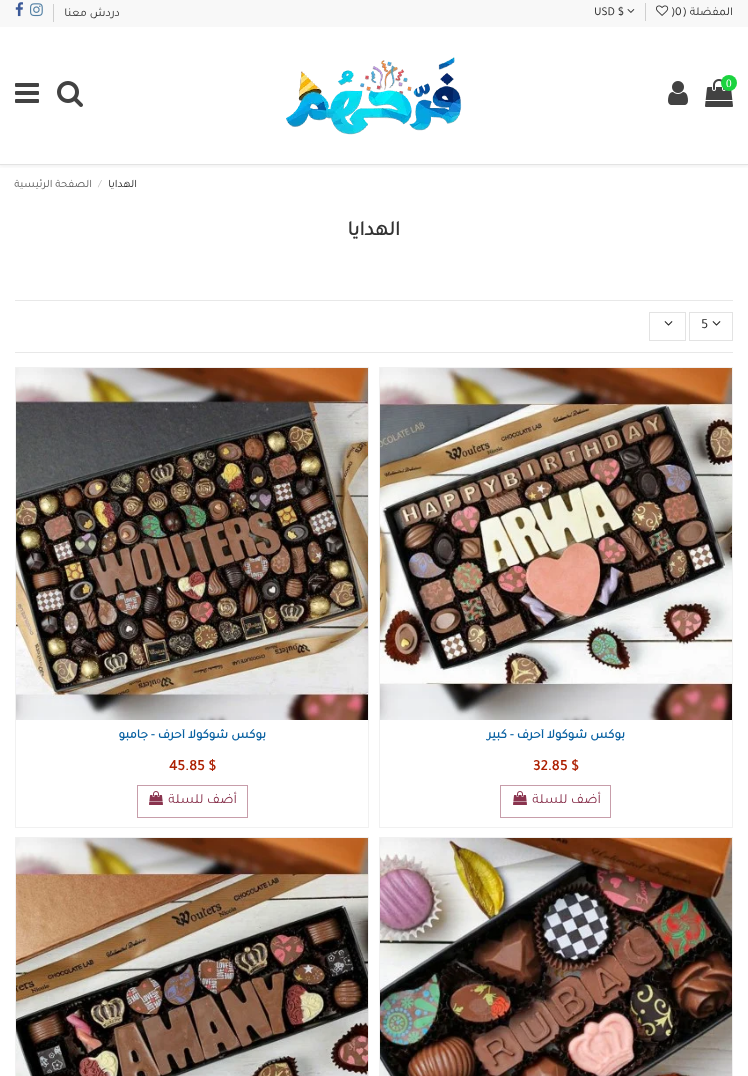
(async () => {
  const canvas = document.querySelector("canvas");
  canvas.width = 748;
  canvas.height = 1076;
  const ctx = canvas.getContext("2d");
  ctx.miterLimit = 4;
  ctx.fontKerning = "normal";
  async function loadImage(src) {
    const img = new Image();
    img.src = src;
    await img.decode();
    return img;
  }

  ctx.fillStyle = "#ffffff";
  ctx.fillRect(0, 0, 748, 1076);
  ctx.save();
  ctx.beginPath();
  ctx.rect(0, 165, 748, 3);
  ctx.clip();
  ctx.fillStyle = "rgba(107, 105, 105, 0.12)";
  ctx.filter = "blur(2px)";
  ctx.beginPath();
  ctx.rect(-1, 26, 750, 140);
  ctx.fill();
  ctx.filter = "none";
  ctx.restore();
  ctx.fillStyle = "#f8f8f8";
  ctx.fillRect(0, 0, 748, 27);
  ctx.drawImage(await loadImage("img/1.png"), 656, 5, 13, 11);
  ctx.fillStyle = "#cfcfcf";
  ctx.fillRect(645, 3, 1, 18);
  ctx.drawImage(await loadImage("img/2.png"), 627, 9, 8, 4);
  ctx.fillRect(53, 4, 1, 18);
  ctx.drawImage(await loadImage("img/3.png"), 30, 3, 13, 14);
  ctx.drawImage(await loadImage("img/4.png"), 15, 2, 8, 15);
  ctx.fillStyle = "#e3e3e3";
  ctx.fillRect(0, 164, 748, 1);
  ctx.drawImage(await loadImage("img/5.png"), 705, 79, 28, 28);
  ctx.fillStyle = "#1bd33f";
  ctx.beginPath();
  ctx.arc(729, 83, 8, 0, Math.PI * 2);
  ctx.fill();
  ctx.drawImage(await loadImage("img/6.png"), 668, 81, 20, 24);
  ctx.drawImage(await loadImage("img/7.png"), 286, 57, 176, 78);
  ctx.drawImage(await loadImage("img/8.png"), 57, 81, 26, 26);
  ctx.drawImage(await loadImage("img/9.png"), 15, 83, 24, 20);
  ctx.fillStyle = "#e8e8e8";
  ctx.fillRect(15, 300, 718, 1);
  ctx.fillRect(15, 352, 718, 1);
  ctx.strokeStyle = "#e3e3e3";
  ctx.strokeRect(689.5, 312.5, 43, 28);
  ctx.drawImage(await loadImage("img/10.png"), 712, 321, 9, 5);
  ctx.strokeRect(649.5, 312.5, 36, 28);
  ctx.drawImage(await loadImage("img/10.png"), 664, 321, 9, 5);
  ctx.strokeStyle = "#f1f1f1";
  ctx.strokeRect(379.5, 367.5, 353, 460);
  ctx.drawImage(await loadImage("img/11.png"), 380, 368, 352, 352);
  ctx.strokeStyle = "#c79daa";
  ctx.strokeRect(500.5, 785.5, 110, 32);
  ctx.drawImage(await loadImage("img/12.png"), 513, 791, 14, 14);
  ctx.strokeStyle = "#f1f1f1";
  ctx.strokeRect(15.5, 367.5, 353, 460);
  ctx.drawImage(await loadImage("img/13.png"), 16, 368, 352, 352);
  ctx.strokeStyle = "#c79daa";
  ctx.strokeRect(137.5, 785.5, 110, 32);
  ctx.drawImage(await loadImage("img/12.png"), 149, 791, 14, 14);
  ctx.strokeStyle = "#f1f1f1";
  ctx.strokeRect(379.5, 837.5, 353, 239);
  ctx.drawImage(await loadImage("img/14.png"), 380, 838, 352, 238);
  ctx.strokeRect(15.5, 837.5, 353, 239);
  ctx.drawImage(await loadImage("img/15.png"), 16, 838, 352, 238);
  ctx.direction = "rtl";
  ctx.font = "12px Tajawal";
  ctx.fillStyle = "#2d2d2d";
  ctx.fillText("المفضلة (", 733, 15);
  ctx.direction = "ltr";
  for (const [text, x, y] of [
    ["0", 675, 15],
    [")", 671, 15],
    ["USD $", 594, 15],
  ]) {
    ctx.fillText(text, x, y);
  }
  ctx.direction = "rtl";
  ctx.fillText("دردش معنا", 120, 16);
  ctx.direction = "ltr";
  ctx.font = "11.25px Liberation Serif";
  ctx.fillStyle = "#ffffff";
  ctx.fillText("0", 726, 87);
  ctx.direction = "rtl";
  ctx.font = "11.25px Tajawal";
  ctx.fillStyle = "#1f1f1f";
  ctx.fillText("الهدايا", 137, 187);
  ctx.direction = "ltr";
  ctx.fillStyle = "#bebebe";
  ctx.fillText("/", 98, 187);
  ctx.direction = "rtl";
  ctx.fillStyle = "#5c5c5c";
  ctx.fillText("الصفحة الرئيسية", 92, 187);
  ctx.font = "bold 20.5px Tajawal";
  ctx.fillStyle = "#333333";
  ctx.fillText("الهدايا", 400, 235);
  ctx.direction = "ltr";
  ctx.font = "14px Tajawal";
  ctx.fillStyle = "#1f1f1f";
  ctx.fillText("5", 701, 328);
  ctx.save();
  ctx.beginPath();
  ctx.rect(389, 729, 334, 28);
  ctx.clip();
  ctx.direction = "rtl";
  ctx.font = "bold 13px Tajawal";
  ctx.fillStyle = "#0860a1";
  ctx.fillText("بوكس شوكولا أحرف - كبير", 625, 738);
  ctx.restore();
  ctx.font = "bold 15px Tajawal";
  ctx.fillStyle = "#ad1f00";
  ctx.fillText("32.85 $", 533, 770);
  ctx.direction = "rtl";
  ctx.font = "14px Tajawal";
  ctx.fillStyle = "#89334e";
  ctx.fillText("أضف للسلة", 601, 803);
  ctx.save();
  ctx.beginPath();
  ctx.rect(25, 729, 334, 28);
  ctx.clip();
  ctx.font = "bold 13px Tajawal";
  ctx.fillStyle = "#0860a1";
  ctx.fillText("بوكس شوكولا أحرف - جامبو", 266, 738);
  ctx.restore();
  ctx.direction = "ltr";
  ctx.font = "bold 15px Tajawal";
  ctx.fillStyle = "#ad1f00";
  ctx.fillText("45.85 $", 169, 770);
  ctx.direction = "rtl";
  ctx.font = "14px Tajawal";
  ctx.fillStyle = "#89334e";
  ctx.fillText("أضف للسلة", 237, 803);
})();
